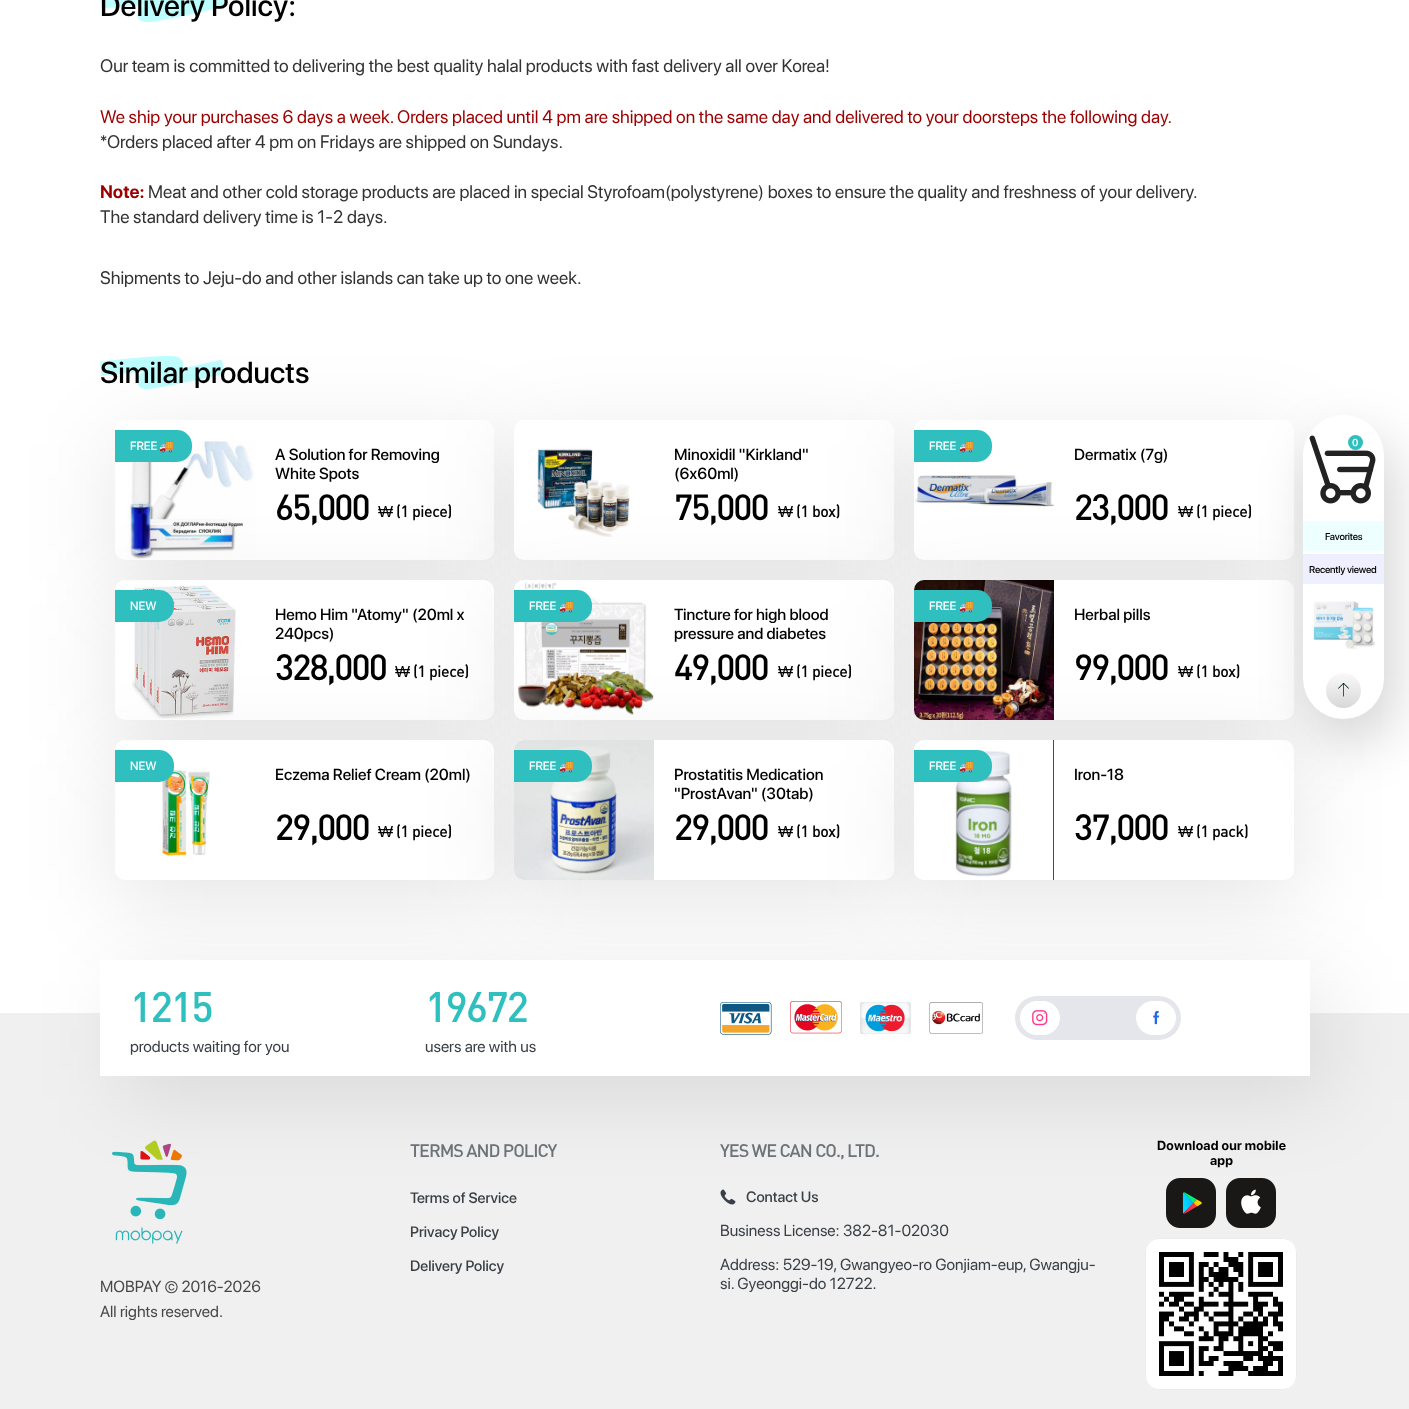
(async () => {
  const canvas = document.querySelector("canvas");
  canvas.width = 1409;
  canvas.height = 1409;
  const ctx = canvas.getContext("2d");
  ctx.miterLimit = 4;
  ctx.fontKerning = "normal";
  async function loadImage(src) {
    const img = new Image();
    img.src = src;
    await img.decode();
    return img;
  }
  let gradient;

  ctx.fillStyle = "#ffffff";
  ctx.fillRect(0, 0, 1409, 1409);
  ctx.drawImage(await loadImage("img/1.png"), 100, 0, 125, 22);
  ctx.drawImage(await loadImage("img/2.png"), 100, 356, 125, 33);
  ctx.fillStyle = "rgba(0, 0, 0, 0.1)";
  ctx.filter = "blur(45.5px)";
  ctx.beginPath();
  ctx.roundRect(116, 442, 379, 140, 10);
  ctx.fill();
  ctx.filter = "none";
  ctx.fillStyle = "#ffffff";
  ctx.beginPath();
  ctx.roundRect(115, 420, 379, 140, 10);
  ctx.fill();
  ctx.drawImage(await loadImage("img/3.png"), 127, 441, 128, 118);
  ctx.fillStyle = "#30bfbf";
  ctx.beginPath();
  ctx.roundRect(115, 430, 77, 32, [0, 15, 15, 0]);
  ctx.fill();
  ctx.fillStyle = "rgba(0, 0, 0, 0.1)";
  ctx.filter = "blur(45.5px)";
  ctx.beginPath();
  ctx.roundRect(515, 442, 380, 140, 10);
  ctx.fill();
  ctx.filter = "none";
  ctx.fillStyle = "#ffffff";
  ctx.beginPath();
  ctx.roundRect(514, 420, 380, 140, 10);
  ctx.fill();
  ctx.drawImage(await loadImage("img/4.png"), 537, 448, 93, 89);
  ctx.fillStyle = "rgba(0, 0, 0, 0.1)";
  ctx.filter = "blur(45.5px)";
  ctx.beginPath();
  ctx.roundRect(915, 442, 380, 140, 10);
  ctx.fill();
  ctx.filter = "none";
  ctx.fillStyle = "#ffffff";
  ctx.beginPath();
  ctx.roundRect(914, 420, 380, 140, 10);
  ctx.fill();
  ctx.fillStyle = "#30bfbf";
  ctx.beginPath();
  ctx.roundRect(914, 430, 78, 32, [0, 15, 15, 0]);
  ctx.fill();
  ctx.drawImage(await loadImage("img/5.png"), 914, 475, 140, 32);
  ctx.fillStyle = "rgba(0, 0, 0, 0.1)";
  ctx.filter = "blur(45.5px)";
  ctx.beginPath();
  ctx.roundRect(116, 602, 379, 140, 10);
  ctx.fill();
  ctx.filter = "none";
  ctx.fillStyle = "#ffffff";
  ctx.beginPath();
  ctx.roundRect(115, 580, 379, 140, 10);
  ctx.fill();
  ctx.drawImage(await loadImage("img/6.png"), 132, 585, 104, 134);
  ctx.fillStyle = "#30bfbf";
  ctx.beginPath();
  ctx.roundRect(115, 590, 59, 32, [0, 15, 15, 0]);
  ctx.fill();
  ctx.fillStyle = "rgba(0, 0, 0, 0.1)";
  ctx.filter = "blur(45.5px)";
  ctx.beginPath();
  ctx.roundRect(515, 602, 380, 140, 10);
  ctx.fill();
  ctx.filter = "none";
  ctx.fillStyle = "#ffffff";
  ctx.beginPath();
  ctx.roundRect(514, 580, 380, 140, 10);
  ctx.fill();
  ctx.drawImage(await loadImage("img/7.png"), 517, 582, 137, 133);
  ctx.fillStyle = "#30bfbf";
  ctx.beginPath();
  ctx.roundRect(514, 590, 78, 32, [0, 15, 15, 0]);
  ctx.fill();
  ctx.fillStyle = "rgba(0, 0, 0, 0.1)";
  ctx.filter = "blur(45.5px)";
  ctx.beginPath();
  ctx.roundRect(915, 602, 380, 140, 10);
  ctx.fill();
  ctx.filter = "none";
  ctx.fillStyle = "#ffffff";
  ctx.beginPath();
  ctx.roundRect(914, 580, 380, 140, 10);
  ctx.fill();
  ctx.drawImage(await loadImage("img/8.png"), 914, 580, 140, 140);
  ctx.fillStyle = "#30bfbf";
  ctx.beginPath();
  ctx.roundRect(914, 590, 78, 32, [0, 15, 15, 0]);
  ctx.fill();
  ctx.fillStyle = "#f0f0f0";
  ctx.fillRect(0, 1013, 1409, 396);
  ctx.fillStyle = "rgba(0, 0, 0, 0.1)";
  ctx.filter = "blur(45.5px)";
  ctx.beginPath();
  ctx.roundRect(116, 762, 379, 140, 10);
  ctx.fill();
  ctx.filter = "none";
  ctx.fillStyle = "#ffffff";
  ctx.beginPath();
  ctx.roundRect(115, 740, 379, 140, 10);
  ctx.fill();
  ctx.drawImage(await loadImage("img/9.png"), 160, 768, 50, 88);
  ctx.fillStyle = "#30bfbf";
  ctx.beginPath();
  ctx.roundRect(115, 750, 59, 32, [0, 15, 15, 0]);
  ctx.fill();
  ctx.fillStyle = "rgba(0, 0, 0, 0.1)";
  ctx.filter = "blur(45.5px)";
  ctx.beginPath();
  ctx.roundRect(515, 762, 380, 140, 10);
  ctx.fill();
  ctx.filter = "none";
  ctx.fillStyle = "#ffffff";
  ctx.beginPath();
  ctx.roundRect(514, 740, 380, 140, 10);
  ctx.fill();
  ctx.drawImage(await loadImage("img/10.png"), 514, 740, 140, 140);
  ctx.fillStyle = "#30bfbf";
  ctx.beginPath();
  ctx.roundRect(514, 750, 78, 32, [0, 15, 15, 0]);
  ctx.fill();
  ctx.fillStyle = "rgba(0, 0, 0, 0.1)";
  ctx.filter = "blur(45.5px)";
  ctx.beginPath();
  ctx.roundRect(915, 762, 380, 140, 10);
  ctx.fill();
  ctx.filter = "none";
  ctx.fillStyle = "#ffffff";
  ctx.beginPath();
  ctx.roundRect(914, 740, 380, 140, 10);
  ctx.fill();
  ctx.drawImage(await loadImage("img/11.png"), 954, 740, 100, 140);
  ctx.fillStyle = "#30bfbf";
  ctx.beginPath();
  ctx.roundRect(914, 750, 78, 32, [0, 15, 15, 0]);
  ctx.fill();
  ctx.fillStyle = "rgba(0, 0, 0, 0.17)";
  ctx.filter = "blur(27px)";
  ctx.beginPath();
  ctx.roundRect(1313, 438, 81, 304, 40.5);
  ctx.fill();
  ctx.filter = "none";
  ctx.fillStyle = "#ffffff";
  ctx.beginPath();
  ctx.roundRect(1303, 415, 81, 304, 40.5);
  ctx.fill();
  ctx.drawImage(await loadImage("img/12.png"), 1309, 435, 67, 69);
  ctx.fillStyle = "#30bfbf";
  ctx.beginPath();
  ctx.arc(1355.5, 442.5, 7.5, 0, Math.PI * 2);
  ctx.fill();
  ctx.fillStyle = "#eeffff";
  ctx.fillRect(1303, 521, 81, 30);
  ctx.fillStyle = "#eff0ff";
  ctx.fillRect(1303, 554, 81, 30);
  ctx.drawImage(await loadImage("img/13.png"), 1313, 601, 62, 48);
  gradient = ctx.createLinearGradient(1344, 673, 1344, 708);
  gradient.addColorStop(0, "#f9f9f9");
  gradient.addColorStop(1, "#d8d8d8");
  ctx.fillStyle = gradient;
  ctx.beginPath();
  ctx.arc(1343.5, 690.5, 17.5, 0, Math.PI * 2);
  ctx.fill();
  ctx.drawImage(await loadImage("img/14.png"), 1338, 683, 11, 14);
  ctx.fillStyle = "rgba(0, 0, 0, 0.09)";
  ctx.filter = "blur(42px)";
  ctx.beginPath();
  ctx.rect(120, 982, 1210, 116);
  ctx.fill();
  ctx.filter = "none";
  ctx.fillStyle = "#ffffff";
  ctx.fillRect(100, 960, 1210, 116);
  ctx.drawImage(await loadImage("img/15.png"), 720, 1002, 52, 33);
  ctx.drawImage(await loadImage("img/16.png"), 790, 1001, 52, 33);
  ctx.drawImage(await loadImage("img/17.png"), 860, 1002, 51, 32);
  ctx.drawImage(await loadImage("img/18.png"), 929, 1002, 54, 32);
  ctx.fillStyle = "#e4e6eb";
  ctx.beginPath();
  ctx.roundRect(1015, 996, 166, 44, 22);
  ctx.fill();
  ctx.fillStyle = "#ffffff";
  ctx.beginPath();
  ctx.roundRect(1020, 1001, 40, 34, 17);
  ctx.fill();
  ctx.drawImage(await loadImage("img/19.png"), 1032, 1010, 16, 16);
  ctx.beginPath();
  ctx.roundRect(1136, 1001, 40, 34, 17);
  ctx.fill();
  ctx.drawImage(await loadImage("img/20.png"), 1153, 1011, 7, 14);
  ctx.drawImage(await loadImage("img/21.png"), 720, 1189, 16, 16);
  ctx.drawImage(await loadImage("img/22.png"), 1166, 1178, 50, 50);
  ctx.drawImage(await loadImage("img/23.png"), 1226, 1178, 50, 50);
  ctx.beginPath();
  ctx.roundRect(1145, 1238, 152, 152, 14);
  ctx.fill();
  ctx.beginPath();
  ctx.roundRect(1145.5, 1238.5, 151, 151, 13.5);
  ctx.strokeStyle = "rgba(0, 0, 0, 0.08)";
  ctx.stroke();
  ctx.drawImage(await loadImage("img/24.png"), 1159, 1252, 124, 124);
  ctx.drawImage(await loadImage("img/25.png"), 112, 1140, 75, 104);
  ctx.font = "500 30px SF Pro Display";
  ctx.fillStyle = "#000000";
  ctx.fillText("Delivery Policy:", 100, 16);
  ctx.font = "18px SF Pro Display";
  ctx.fillStyle = "#333333";
  ctx.fillText("Our team is committed to delivering the best quality halal products with fast delivery all over Korea!", 100, 72);
  ctx.fillStyle = "#9c0000";
  ctx.fillText("We ship your purchases 6 days a week. Orders placed until 4 pm are shipped on the same day and delivered to your doorsteps the following day.", 100, 123);
  ctx.fillStyle = "#333333";
  ctx.fillText("*Orders placed after 4 pm on Fridays are shipped on Sundays.", 100, 148);
  ctx.font = "bold 18px SF Pro Display";
  ctx.fillStyle = "#9c0000";
  ctx.fillText("Note:", 100, 198);
  ctx.font = "18px SF Pro Display";
  ctx.fillStyle = "#333333";
  for (const [text, x, y] of [
    ["Meat and other cold storage products are placed in special Styrofoam(polystyrene) boxes to ensure the quality and freshness of your delivery.", 148, 198],
    ["The standard delivery time is 1-2 days.", 100, 223],
    ["Shipments to Jeju-do and other islands can take up to one week.", 100, 284],
  ]) {
    ctx.fillText(text, x, y);
  }
  ctx.font = "500 30px SF Pro Display";
  ctx.fillStyle = "#000000";
  ctx.fillText("Similar products", 100, 383);
  ctx.font = "500 12px SF Pro Display";
  ctx.fillStyle = "#ffffff";
  ctx.fillText("FREE", 130, 450);
  ctx.font = "12px Noto Color Emoji";
  ctx.fillText("🚚", 159, 450);
  ctx.font = "500 16px SF Pro Display";
  ctx.fillStyle = "#000000";
  ctx.fillText("A Solution for Removing", 275, 460);
  ctx.fillText("White Spots", 275, 479);
  ctx.letterSpacing = "-2px";
  ctx.font = "500 36px DIN";
  ctx.fillText("65,000", 275, 520);
  ctx.letterSpacing = "-0.5px";
  ctx.font = "16px Liberation Sans";
  ctx.fillText("₩", 378, 517);
  ctx.font = "500 16px DIN";
  ctx.fillText("(1 piece)", 396, 517);
  ctx.letterSpacing = "0px";
  ctx.font = "500 16px SF Pro Display";
  ctx.fillText("Minoxidil \"Kirkland\"", 674, 460);
  ctx.fillText("(6х60ml)", 674, 479);
  ctx.letterSpacing = "-2px";
  ctx.font = "500 36px DIN";
  ctx.fillText("75,000", 674, 520);
  ctx.letterSpacing = "-0.5px";
  ctx.font = "16px Liberation Sans";
  ctx.fillText("₩", 778, 517);
  ctx.font = "500 16px DIN";
  ctx.fillText("(1 box)", 796, 517);
  ctx.letterSpacing = "0px";
  ctx.font = "500 12px SF Pro Display";
  ctx.fillStyle = "#ffffff";
  ctx.fillText("FREE", 929, 450);
  ctx.font = "12px Noto Color Emoji";
  ctx.fillText("🚚", 959, 450);
  ctx.font = "500 16px SF Pro Display";
  ctx.fillStyle = "#000000";
  ctx.fillText("Dermatix (7g)", 1074, 460);
  ctx.letterSpacing = "-2px";
  ctx.font = "500 36px DIN";
  ctx.fillText("23,000", 1074, 520);
  ctx.letterSpacing = "-0.5px";
  ctx.font = "16px Liberation Sans";
  ctx.fillText("₩", 1178, 517);
  ctx.font = "500 16px DIN";
  ctx.fillText("(1 piece)", 1196, 517);
  ctx.letterSpacing = "0px";
  ctx.font = "500 12px SF Pro Display";
  ctx.fillStyle = "#ffffff";
  ctx.fillText("NEW", 130, 610);
  ctx.font = "500 16px SF Pro Display";
  ctx.fillStyle = "#000000";
  ctx.fillText("Hemo Him \"Atomy\" (20ml х", 275, 620);
  ctx.fillText("240pcs)", 275, 639);
  ctx.letterSpacing = "-2px";
  ctx.font = "500 36px DIN";
  ctx.fillText("328,000", 275, 680);
  ctx.letterSpacing = "-0.5px";
  ctx.font = "16px Liberation Sans";
  ctx.fillText("₩", 395, 677);
  ctx.font = "500 16px DIN";
  ctx.fillText("(1 piece)", 413, 677);
  ctx.letterSpacing = "0px";
  ctx.font = "500 12px SF Pro Display";
  ctx.fillStyle = "#ffffff";
  ctx.fillText("FREE", 529, 610);
  ctx.font = "12px Noto Color Emoji";
  ctx.fillText("🚚", 559, 610);
  ctx.font = "500 16px SF Pro Display";
  ctx.fillStyle = "#000000";
  ctx.fillText("Tincture for high blood", 674, 620);
  ctx.fillText("pressure and diabetes", 674, 639);
  ctx.letterSpacing = "-2px";
  ctx.font = "500 36px DIN";
  ctx.fillText("49,000", 674, 680);
  ctx.letterSpacing = "-0.5px";
  ctx.font = "16px Liberation Sans";
  ctx.fillText("₩", 778, 677);
  ctx.font = "500 16px DIN";
  ctx.fillText("(1 piece)", 796, 677);
  ctx.letterSpacing = "0px";
  ctx.font = "500 12px SF Pro Display";
  ctx.fillStyle = "#ffffff";
  ctx.fillText("FREE", 929, 610);
  ctx.font = "12px Noto Color Emoji";
  ctx.fillText("🚚", 959, 610);
  ctx.font = "500 16px SF Pro Display";
  ctx.fillStyle = "#000000";
  ctx.fillText("Herbal pills", 1074, 620);
  ctx.letterSpacing = "-2px";
  ctx.font = "500 36px DIN";
  ctx.fillText("99,000", 1074, 680);
  ctx.letterSpacing = "-0.5px";
  ctx.font = "16px Liberation Sans";
  ctx.fillText("₩", 1178, 677);
  ctx.font = "500 16px DIN";
  ctx.fillText("(1 box)", 1196, 677);
  ctx.letterSpacing = "0px";
  ctx.font = "500 12px SF Pro Display";
  ctx.fillStyle = "#ffffff";
  ctx.fillText("NEW", 130, 770);
  ctx.font = "500 16px SF Pro Display";
  ctx.fillStyle = "#000000";
  ctx.fillText("Eczema Relief Cream (20ml)", 275, 780);
  ctx.letterSpacing = "-2px";
  ctx.font = "500 36px DIN";
  ctx.fillText("29,000", 275, 840);
  ctx.letterSpacing = "-0.5px";
  ctx.font = "16px Liberation Sans";
  ctx.fillText("₩", 378, 837);
  ctx.font = "500 16px DIN";
  ctx.fillText("(1 piece)", 396, 837);
  ctx.letterSpacing = "0px";
  ctx.font = "500 12px SF Pro Display";
  ctx.fillStyle = "#ffffff";
  ctx.fillText("FREE", 529, 770);
  ctx.font = "12px Noto Color Emoji";
  ctx.fillText("🚚", 559, 770);
  ctx.font = "500 16px SF Pro Display";
  ctx.fillStyle = "#000000";
  ctx.fillText("Prostatitis Medication", 674, 780);
  ctx.fillText("\"ProstAvan\" (30tab)", 674, 799);
  ctx.letterSpacing = "-2px";
  ctx.font = "500 36px DIN";
  ctx.fillText("29,000", 674, 840);
  ctx.letterSpacing = "-0.5px";
  ctx.font = "16px Liberation Sans";
  ctx.fillText("₩", 778, 837);
  ctx.font = "500 16px DIN";
  ctx.fillText("(1 box)", 796, 837);
  ctx.letterSpacing = "0px";
  ctx.font = "500 12px SF Pro Display";
  ctx.fillStyle = "#ffffff";
  ctx.fillText("FREE", 929, 770);
  ctx.font = "12px Noto Color Emoji";
  ctx.fillText("🚚", 959, 770);
  ctx.font = "500 16px SF Pro Display";
  ctx.fillStyle = "#000000";
  ctx.fillText("Iron-18", 1074, 780);
  ctx.letterSpacing = "-2px";
  ctx.font = "500 36px DIN";
  ctx.fillText("37,000", 1074, 840);
  ctx.letterSpacing = "-0.5px";
  ctx.font = "16px Liberation Sans";
  ctx.fillText("₩", 1178, 837);
  ctx.font = "500 16px DIN";
  ctx.fillText("(1 pack)", 1196, 837);
  ctx.letterSpacing = "0px";
  ctx.font = "600 10px SF Pro Display";
  ctx.fillStyle = "#ffffff";
  ctx.fillText("0", 1352, 446);
  ctx.letterSpacing = "-0.2px";
  ctx.font = "500 10px SF Pro Display";
  ctx.fillStyle = "#000000";
  ctx.fillText("Favorites", 1325, 540);
  ctx.fillText("Recently viewed", 1309, 573);
  ctx.letterSpacing = "-2px";
  ctx.font = "500 42px DIN";
  ctx.fillStyle = "#30bfbf";
  ctx.fillText("1215", 130, 1022);
  ctx.letterSpacing = "0px";
  ctx.font = "16px SF Pro Display";
  ctx.fillStyle = "#3a3f46";
  ctx.fillText("products waiting for you", 130, 1052);
  ctx.letterSpacing = "-2px";
  ctx.font = "500 42px DIN";
  ctx.fillStyle = "#30bfbf";
  ctx.fillText("19672", 425, 1022);
  ctx.letterSpacing = "0px";
  ctx.font = "16px SF Pro Display";
  ctx.fillStyle = "#3a3f46";
  ctx.fillText("users are with us", 425, 1052);
  ctx.letterSpacing = "-1px";
  ctx.font = "500 18px DIN";
  ctx.fillStyle = "#6d7278";
  ctx.fillText("TERMS AND POLICY", 410, 1157);
  ctx.letterSpacing = "0px";
  ctx.font = "500 15px SF Pro Display";
  ctx.fillStyle = "#3a3f46";
  for (const [text, x, y] of [
    ["Terms of Service", 410, 1203],
    ["Privacy Policy", 410, 1237],
    ["Delivery Policy", 410, 1271],
  ]) {
    ctx.fillText(text, x, y);
  }
  ctx.letterSpacing = "-1px";
  ctx.font = "500 18px DIN";
  ctx.fillStyle = "#6d7278";
  ctx.fillText("YES WE CAN CO., LTD.", 720, 1157);
  ctx.letterSpacing = "0px";
  ctx.font = "500 15px SF Pro Display";
  ctx.fillStyle = "#3a3f46";
  ctx.fillText("Contact Us", 746, 1202);
  ctx.font = "16px SF Pro Display";
  for (const [text, x, y] of [
    ["Business License: 382-81-02030", 720, 1236],
    ["Address: 529-19, Gwangyeo-ro Gonjiam-eup, Gwangju-", 720, 1270],
    ["si. Gyeonggi-do 12722.", 720, 1289],
  ]) {
    ctx.fillText(text, x, y);
  }
  ctx.letterSpacing = "0.25px";
  ctx.font = "bold 13px SF Pro Display";
  ctx.fillStyle = "#000000";
  ctx.fillText("Download our mobile", 1157, 1150);
  ctx.fillText("app", 1210, 1165);
  ctx.letterSpacing = "0px";
  ctx.font = "16px SF Pro Display";
  ctx.fillStyle = "#484848";
  ctx.fillText("MOBPAY © 2016-2026", 100, 1292);
  ctx.fillText("All rights reserved.", 100, 1317);
})();
